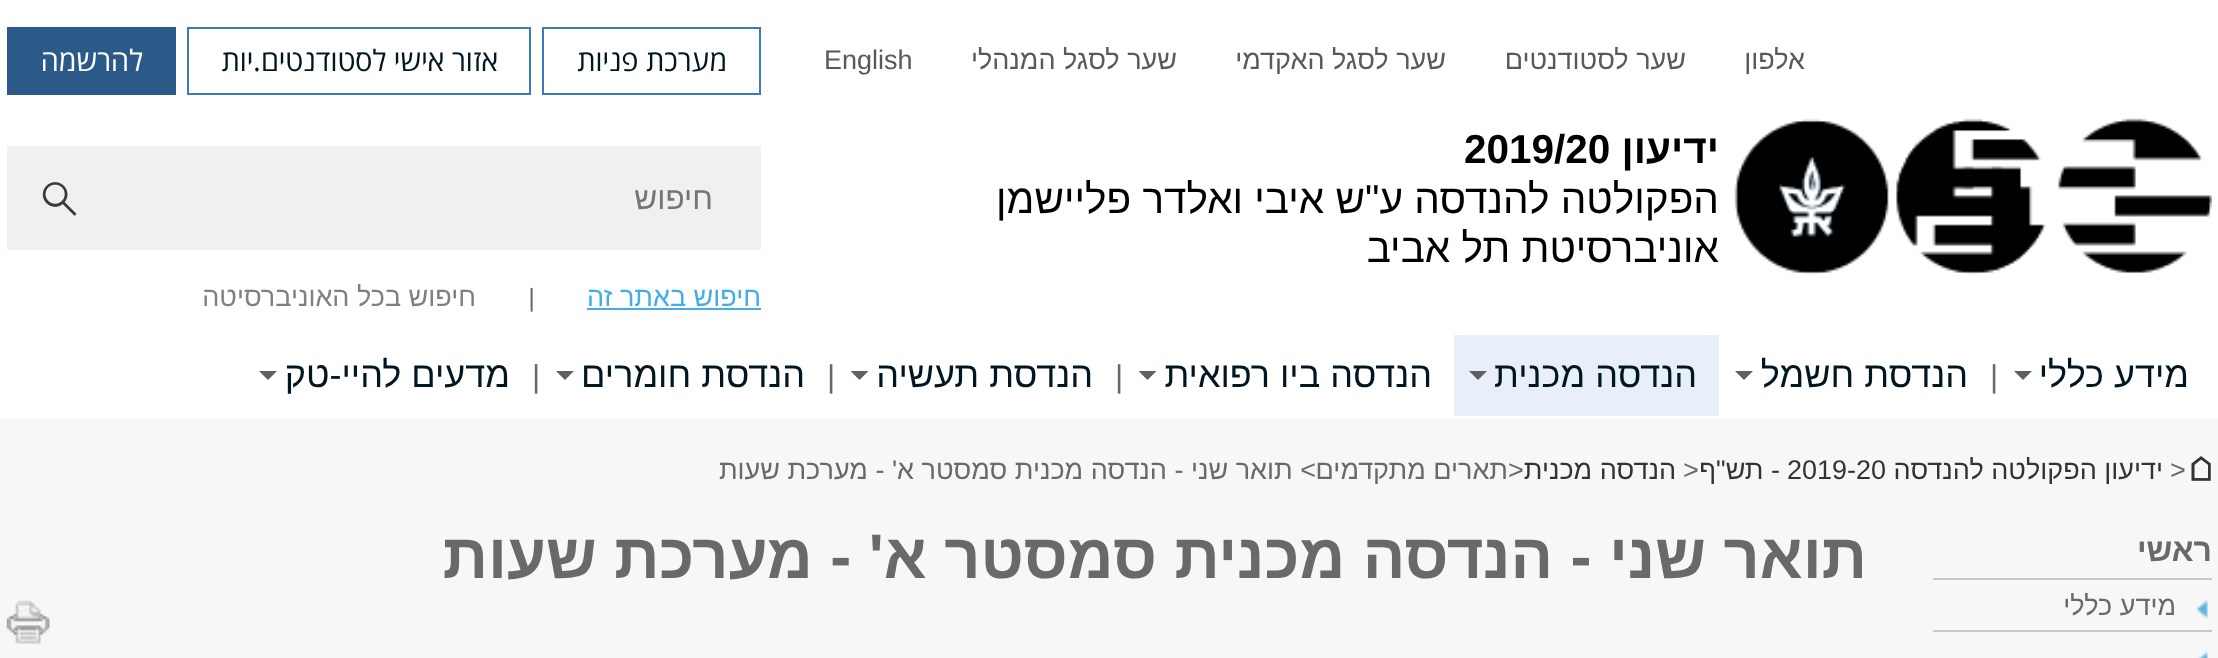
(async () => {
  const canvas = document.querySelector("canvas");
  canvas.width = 2218;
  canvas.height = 658;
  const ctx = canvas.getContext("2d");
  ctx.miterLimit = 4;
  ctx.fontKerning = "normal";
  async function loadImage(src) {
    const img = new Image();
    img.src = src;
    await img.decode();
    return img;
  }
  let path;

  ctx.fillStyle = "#f7f7f7";
  ctx.fillRect(0, 0, 2218, 658);
  ctx.fillStyle = "#ffffff";
  ctx.fillRect(0, 0, 2218, 419);
  ctx.strokeStyle = "#3b7bbd";
  ctx.lineWidth = 2;
  ctx.strokeRect(543, 28, 217, 66);
  ctx.strokeRect(188, 28, 342, 66);
  ctx.fillStyle = "#2b5988";
  ctx.fillRect(7, 27, 169, 68);
  ctx.drawImage(await loadImage("img/1.png"), 1734, 118, 478, 157);
  ctx.fillStyle = "#f0f0f0";
  ctx.fillRect(7, 146, 754, 104);
  ctx.drawImage(await loadImage("img/2.png"), 42, 182, 35, 34);
  ctx.fillStyle = "#45ade6";
  ctx.fillRect(587, 308, 174, 2);
  ctx.fillStyle = "#606060";
  path = new Path2D("M2014 371H2032L2023 380Z");
  ctx.fill(path);
  path = new Path2D("M1735 371H1753L1744 380Z");
  ctx.fill(path);
  ctx.fillStyle = "#e9eff9";
  ctx.fillRect(1454, 335, 265, 81);
  ctx.fillStyle = "#606060";
  path = new Path2D("M1469 371H1487L1478 380Z");
  ctx.fill(path);
  path = new Path2D("M1138.5 371H1156.5L1147.5 380Z");
  ctx.fill(path);
  path = new Path2D("M850.5 371H868.5L859.5 380Z");
  ctx.fill(path);
  path = new Path2D("M556 371H574L565 380Z");
  ctx.fill(path);
  path = new Path2D("M259 371H277L268 380Z");
  ctx.fill(path);
  ctx.drawImage(await loadImage("img/3.png"), 2191, 456, 20, 25);
  ctx.fillStyle = "#cac9c9";
  ctx.fillRect(1933, 578, 279, 2);
  ctx.drawImage(await loadImage("img/4.png"), 2195, 599, 13, 20);
  ctx.fillRect(1933, 630, 279, 2);
  ctx.drawImage(await loadImage("img/5.png"), 2197, 650, 11, 8);
  ctx.drawImage(await loadImage("img/6.png"), 6, 600, 44, 44);
  ctx.direction = "rtl";
  ctx.font = "27px Liberation Sans";
  ctx.fillStyle = "#595959";
  for (const [text, x, y] of [
    ["אלפון", 1805, 69],
    ["שער לסטודנטים", 1686, 69],
    ["שער לסגל האקדמי", 1446, 69],
    ["שער לסגל המנהלי", 1177, 69],
  ]) {
    ctx.fillText(text, x, y);
  }
  ctx.direction = "ltr";
  ctx.fillText("English", 824, 69);
  ctx.direction = "rtl";
  ctx.font = "29.25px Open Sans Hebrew";
  ctx.fillStyle = "#001721";
  ctx.fillText("מערכת פניות", 727, 71);
  ctx.fillText("אזור אישי לסטודנטים.יות", 498, 71);
  ctx.fillStyle = "#ffffff";
  ctx.fillText("להרשמה", 143, 71);
  ctx.font = "bold 40.5px Liberation Sans";
  ctx.fillStyle = "#000000";
  ctx.fillText("ידיעון", 1719, 163);
  ctx.direction = "ltr";
  ctx.fillText("2019/20", 1464, 163);
  ctx.direction = "rtl";
  ctx.font = "40.5px Liberation Sans";
  for (const [text, x, y] of [
    ["הפקולטה להנדסה", 1719, 213],
    ["ע\"ש איבי ואלדר פליישמן", 1403, 213],
    ["אוניברסיטת תל אביב", 1719, 262],
  ]) {
    ctx.fillText(text, x, y);
  }
  ctx.font = "31.5px Liberation Sans";
  ctx.fillStyle = "#757575";
  ctx.fillText("חיפוש", 713, 209);
  ctx.font = "27px Liberation Sans";
  ctx.fillStyle = "#45ade6";
  ctx.fillText("חיפוש באתר זה", 761, 306);
  ctx.direction = "ltr";
  ctx.font = "italic 25px Liberation Sans";
  ctx.fillStyle = "#696969";
  ctx.fillText("|", 528, 306);
  ctx.direction = "rtl";
  ctx.font = "27px Liberation Sans";
  ctx.fillStyle = "#808080";
  ctx.fillText("חיפוש בכל האוניברסיטה", 476, 306);
  ctx.font = "36px Liberation Sans";
  ctx.fillStyle = "#001721";
  ctx.fillText("מידע כללי", 2189, 387);
  ctx.direction = "ltr";
  ctx.font = "31.5px Liberation Sans";
  ctx.fillStyle = "#696969";
  ctx.fillText("|", 1990, 387);
  ctx.direction = "rtl";
  ctx.font = "36px Liberation Sans";
  ctx.fillStyle = "#001721";
  for (const [text, x, y] of [
    ["הנדסת חשמל", 1968, 387],
    ["הנדסה מכנית", 1697, 387],
    ["הנדסה ביו רפואית", 1432, 387],
  ]) {
    ctx.fillText(text, x, y);
  }
  ctx.direction = "ltr";
  ctx.font = "31.5px Liberation Sans";
  ctx.fillStyle = "#696969";
  ctx.fillText("|", 1115, 387);
  ctx.direction = "rtl";
  ctx.font = "36px Liberation Sans";
  ctx.fillStyle = "#001721";
  ctx.fillText("הנדסת תעשיה", 1093, 387);
  ctx.direction = "ltr";
  ctx.font = "31.5px Liberation Sans";
  ctx.fillStyle = "#696969";
  ctx.fillText("|", 827, 387);
  ctx.direction = "rtl";
  ctx.font = "36px Liberation Sans";
  ctx.fillStyle = "#001721";
  ctx.fillText("הנדסת חומרים", 805, 387);
  ctx.direction = "ltr";
  ctx.font = "31.5px Liberation Sans";
  ctx.fillStyle = "#696969";
  ctx.fillText("|", 532, 387);
  ctx.direction = "rtl";
  ctx.font = "36px Liberation Sans";
  ctx.fillStyle = "#001721";
  ctx.fillText("מדעים להיי-טק", 510, 387);
  ctx.direction = "ltr";
  ctx.font = "27px Liberation Sans";
  ctx.fillStyle = "#696969";
  ctx.fillText(">", 2170, 479);
  ctx.direction = "rtl";
  ctx.fillStyle = "#333333";
  ctx.fillText("ידיעון הפקולטה להנדסה", 2163, 479);
  ctx.direction = "ltr";
  ctx.fillText("2019-20", 1787, 479);
  ctx.direction = "rtl";
  ctx.fillText("- תש\"ף", 1780, 479);
  ctx.direction = "ltr";
  ctx.fillStyle = "#696969";
  ctx.fillText(">", 1683, 479);
  ctx.direction = "rtl";
  ctx.fillStyle = "#333333";
  ctx.fillText("הנדסה מכנית", 1676, 479);
  ctx.direction = "ltr";
  ctx.fillStyle = "#696969";
  ctx.fillText(">", 1508, 479);
  ctx.direction = "rtl";
  ctx.fillText("תארים מתקדמים", 1508, 479);
  ctx.fillText("> תואר שני - הנדסה מכנית סמסטר א' - מערכת שעות", 1316, 479);
  ctx.font = "bold 32px Liberation Sans";
  ctx.fillText("ראשי", 2212, 561);
  ctx.font = "27px Liberation Sans";
  ctx.fillText("מידע כללי", 2176, 615);
  ctx.font = "bold 63px Liberation Sans";
  ctx.fillText("תואר שני - הנדסה מכנית סמסטר א' - מערכת שעות", 1867, 578);
})();
